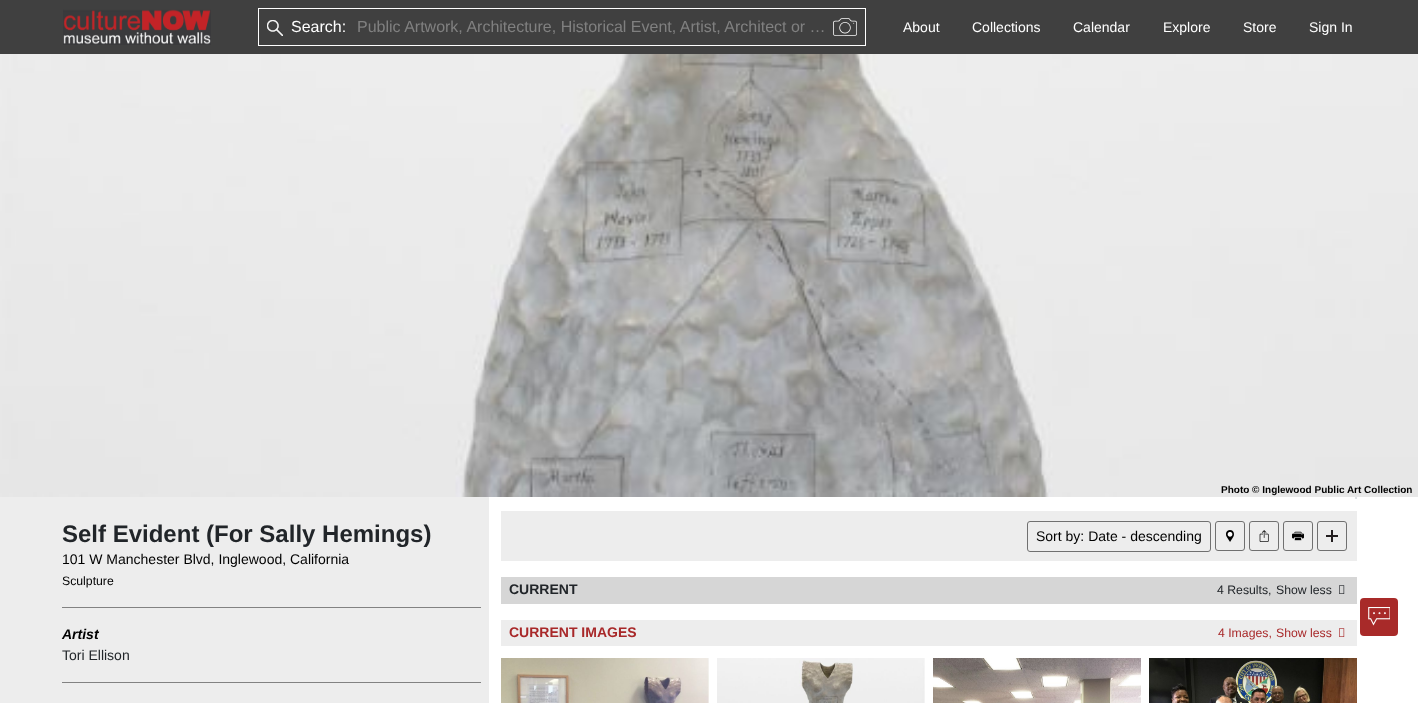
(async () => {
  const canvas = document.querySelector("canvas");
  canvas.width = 1418;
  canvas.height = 703;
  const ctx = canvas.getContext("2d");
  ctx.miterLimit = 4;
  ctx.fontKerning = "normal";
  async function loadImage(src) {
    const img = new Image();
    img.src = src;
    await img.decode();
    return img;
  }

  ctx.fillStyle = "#ffffff";
  ctx.fillRect(0, 0, 1418, 703);
  ctx.fillStyle = "#404040";
  ctx.fillRect(0, 0, 1418, 54);
  ctx.drawImage(await loadImage("img/1.png"), 63, 9, 148, 36);
  ctx.strokeStyle = "#ffffff";
  ctx.strokeRect(258.5, 8.5, 607, 37);
  ctx.drawImage(await loadImage("img/2.png"), 267, 20, 16, 16);
  ctx.drawImage(await loadImage("img/3.png"), 833, 18, 24, 18);
  ctx.drawImage(await loadImage("img/4.png"), 0, 54, 1418, 443);
  for (const [x, y, w, h, color] of [
    [0, 497, 49, 206, "#ededed"],
    [49, 497, 440, 206, "#ededed"],
    [1355, 497, 2, 2, "#dee2e6"],
    [62, 607, 419, 1, "#828282"],
    [62, 682, 419, 1, "#828282"],
    [501, 511, 856, 50, "#ededed"],
  ]) {
    ctx.fillStyle = color;
    ctx.fillRect(x, y, w, h);
  }
  ctx.beginPath();
  ctx.roundRect(1027.5, 521.5, 183, 30, 2.5);
  ctx.strokeStyle = "#707070";
  ctx.stroke();
  ctx.beginPath();
  ctx.roundRect(1215.5, 521.5, 29, 29, 2.5);
  ctx.stroke();
  ctx.drawImage(await loadImage("img/5.png"), 1226, 530, 8, 12);
  ctx.beginPath();
  ctx.roundRect(1249.5, 521.5, 29, 29, 2.5);
  ctx.stroke();
  ctx.drawImage(await loadImage("img/6.png"), 1259, 530, 10, 12);
  ctx.beginPath();
  ctx.roundRect(1283.5, 521.5, 29, 29, 2.5);
  ctx.stroke();
  ctx.drawImage(await loadImage("img/7.png"), 1292, 531, 12, 10);
  ctx.beginPath();
  ctx.roundRect(1317.5, 521.5, 29, 29, 2.5);
  ctx.stroke();
  for (const [x, y, w, h, color] of [
    [1331, 530, 2, 12, "#231f20"],
    [1326, 535, 12, 2, "#231f20"],
    [501, 577, 856, 27, "#d6d6d6"],
  ]) {
    ctx.fillStyle = color;
    ctx.fillRect(x, y, w, h);
  }
  ctx.drawImage(await loadImage("img/8.png"), 1339, 585, 6, 9);
  ctx.fillStyle = "#ededed";
  ctx.fillRect(501, 620, 856, 26);
  ctx.drawImage(await loadImage("img/9.png"), 1339, 628, 6, 9);
  ctx.drawImage(await loadImage("img/10.png"), 501, 658, 208, 45);
  ctx.drawImage(await loadImage("img/11.png"), 717, 658, 208, 45);
  ctx.drawImage(await loadImage("img/12.png"), 933, 658, 208, 45);
  ctx.drawImage(await loadImage("img/13.png"), 1149, 658, 208, 45);
  ctx.fillStyle = "#a82a29";
  ctx.beginPath();
  ctx.roundRect(1360, 598, 38, 38, 4);
  ctx.fill();
  ctx.drawImage(await loadImage("img/14.png"), 1368, 607, 22, 19);
  ctx.font = "16px Liberation Sans";
  ctx.fillStyle = "#ffffff";
  ctx.fillText("Search:", 291, 32);
  ctx.fillStyle = "#808080";
  ctx.fillText("Public Artwork, Architecture, Historical Event, Artist, Architect or …", 357, 32);
  ctx.font = "14px Liberation Sans";
  ctx.fillStyle = "#ffffff";
  for (const [text, x, y] of [
    ["About", 903, 32],
    ["Collections", 972, 32],
    ["Calendar", 1073, 32],
    ["Explore", 1163, 32],
    ["Store", 1243, 32],
    ["Sign In", 1309, 32],
  ]) {
    ctx.fillText(text, x, y);
  }
  ctx.font = "bold 10px Liberation Sans";
  ctx.fillStyle = "#000000";
  ctx.fillText("Photo © Inglewood Public Art Collection", 1221, 493);
  ctx.font = "bold 24px Liberation Sans";
  ctx.fillStyle = "#212529";
  ctx.fillText("Self Evident (For Sally Hemings)", 62, 542);
  ctx.font = "14px Liberation Sans";
  ctx.fillStyle = "#000000";
  ctx.fillText("101 W Manchester Blvd, Inglewood, California", 62, 564);
  ctx.font = "12.25px Liberation Sans";
  ctx.fillText("Sculpture", 62, 585);
  ctx.font = "italic bold 14px Liberation Sans";
  ctx.fillText("Artist", 62, 639);
  ctx.font = "14px Liberation Sans";
  ctx.fillStyle = "#212529";
  ctx.fillText("Tori Ellison", 62, 660);
  ctx.fillStyle = "#000000";
  ctx.fillText("Sort by: Date - descending", 1036, 541);
  ctx.font = "bold 14px Liberation Sans";
  ctx.fillStyle = "#212529";
  ctx.fillText("CURRENT", 509, 594);
  ctx.font = "12.25px Liberation Sans";
  ctx.fillText("4 Results,", 1217, 594);
  ctx.fillText("Show less", 1276, 594);
  ctx.font = "bold 14px Liberation Sans";
  ctx.fillStyle = "#a82829";
  ctx.fillText("CURRENT IMAGES", 509, 637);
  ctx.font = "12.25px Liberation Sans";
  ctx.fillText("4 Images,", 1218, 637);
  ctx.fillText("Show less", 1276, 637);
})();
